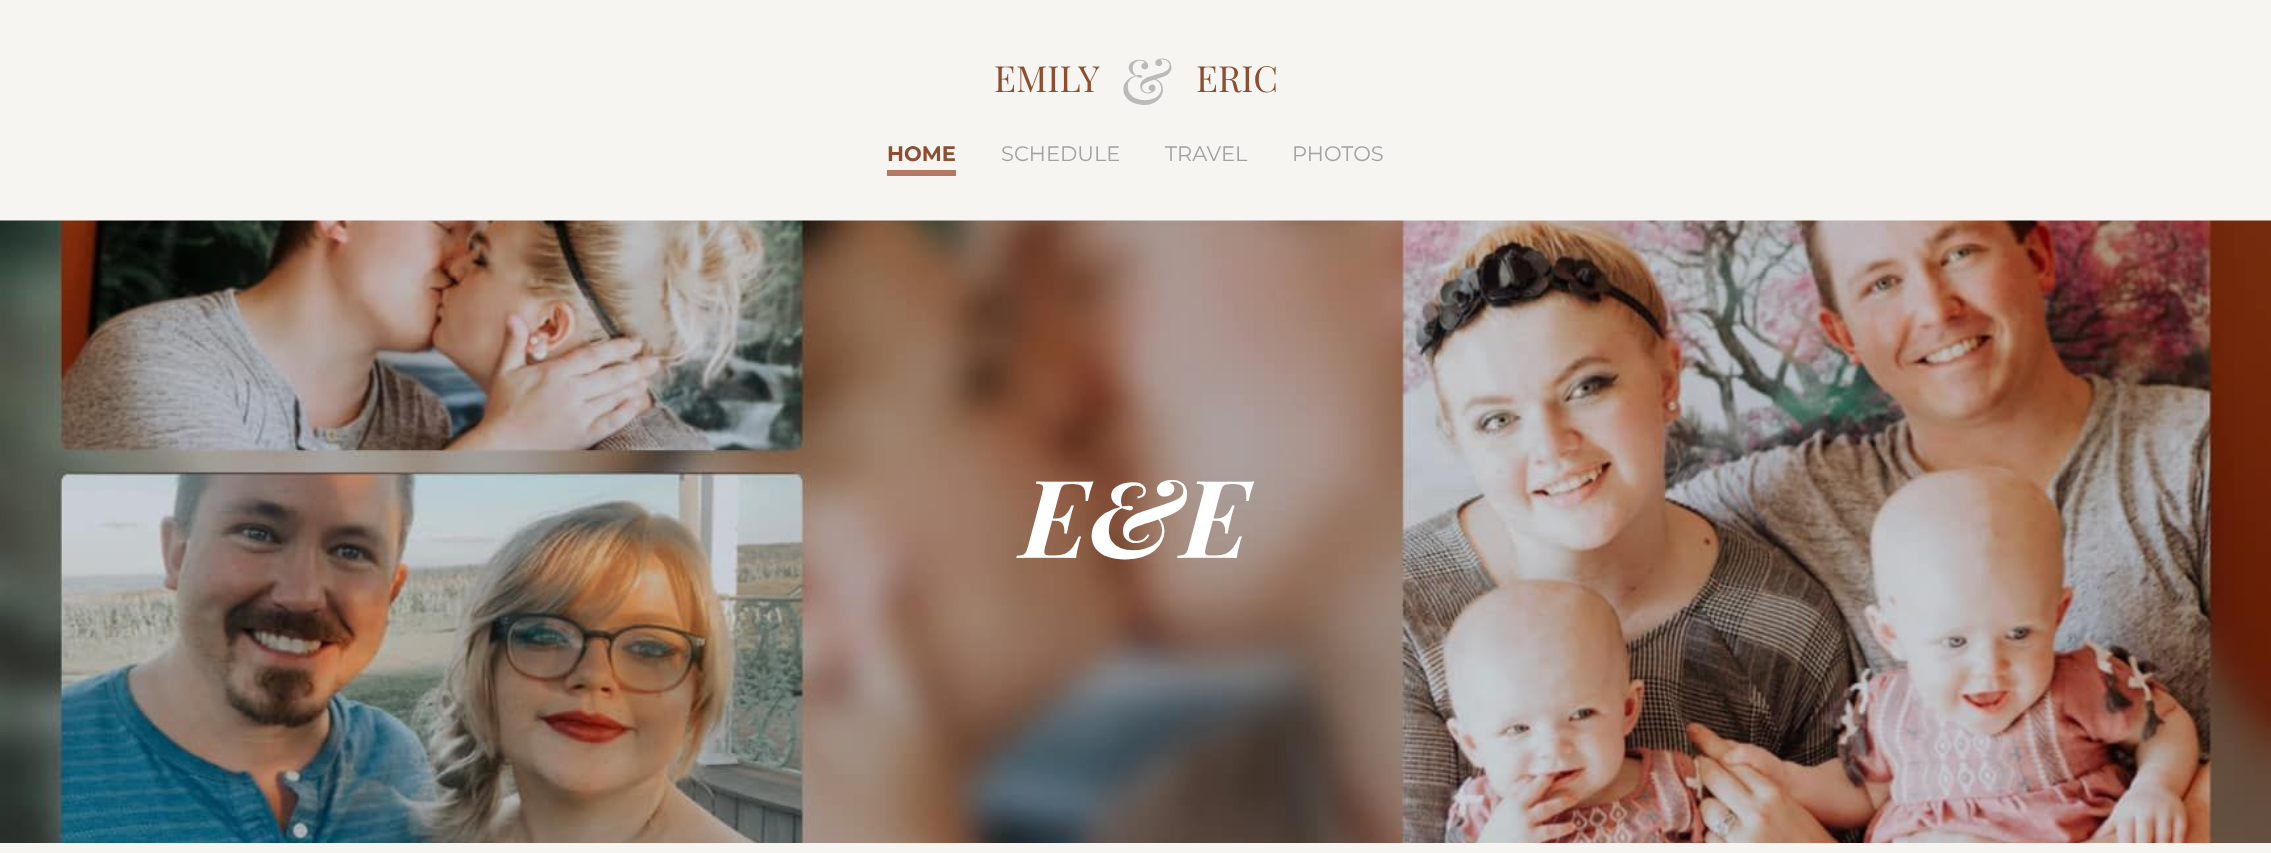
(async () => {
  const canvas = document.querySelector("canvas");
  canvas.width = 2271;
  canvas.height = 853;
  const ctx = canvas.getContext("2d");
  ctx.miterLimit = 4;
  ctx.fontKerning = "normal";
  async function loadImage(src) {
    const img = new Image();
    img.src = src;
    await img.decode();
    return img;
  }

  ctx.fillStyle = "#f7f5f2";
  ctx.fillRect(0, 0, 2271, 853);
  ctx.fillStyle = "#b57863";
  ctx.fillRect(887, 170, 69, 6);
  ctx.drawImage(await loadImage("img/1.png"), 0, 220, 2271, 623);
  ctx.font = "36px Playfair Display";
  ctx.fillStyle = "#8b4f33";
  ctx.fillText("EMILY", 994, 92);
  ctx.font = "63px Playfair Display";
  ctx.fillStyle = "#bbbab8";
  ctx.fillText("&", 1120, 104);
  ctx.font = "36px Playfair Display";
  ctx.fillStyle = "#8b4f33";
  ctx.fillText("ERIC", 1196, 92);
  ctx.font = "bold 21px Montserrat";
  ctx.fillText("HOME", 887, 161);
  ctx.font = "21px Montserrat";
  ctx.fillStyle = "#a2a2a1";
  for (const [text, x, y] of [
    ["SCHEDULE", 1001, 161],
    ["TRAVEL", 1165, 161],
    ["PHOTOS", 1292, 161],
  ]) {
    ctx.fillText(text, x, y);
  }
  ctx.font = "italic bold 108px Playfair Display";
  ctx.fillStyle = "#ffffff";
  ctx.fillText("E&E", 1021, 558);
})();
